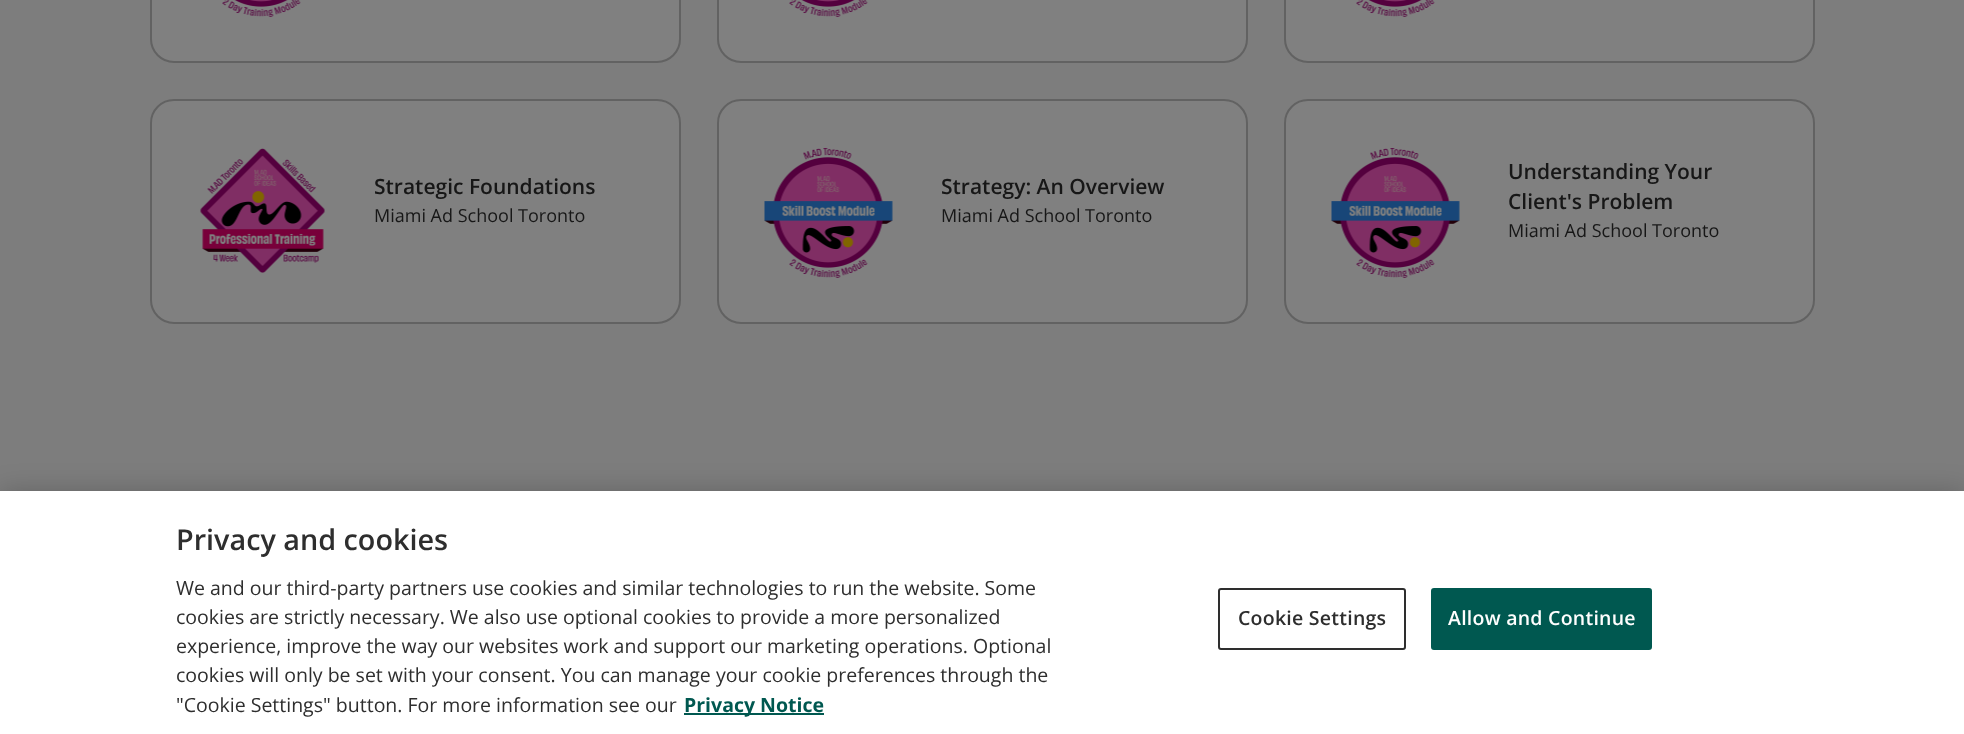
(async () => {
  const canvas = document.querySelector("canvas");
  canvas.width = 1964;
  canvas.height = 734;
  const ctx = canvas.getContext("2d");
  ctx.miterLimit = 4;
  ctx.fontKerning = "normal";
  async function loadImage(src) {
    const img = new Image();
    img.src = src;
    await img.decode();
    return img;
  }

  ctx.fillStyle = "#7d7d7d";
  ctx.fillRect(0, 0, 1964, 734);
  ctx.fillStyle = "#808080";
  ctx.beginPath();
  ctx.roundRect(151, -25, 529, 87, 23);
  ctx.fill();
  ctx.strokeStyle = "#626262";
  ctx.lineWidth = 2;
  ctx.stroke();
  ctx.drawImage(await loadImage("img/1.png"), 222, 0, 79, 17);
  ctx.beginPath();
  ctx.roundRect(718, -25, 529, 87, 23);
  ctx.fill();
  ctx.stroke();
  ctx.drawImage(await loadImage("img/1.png"), 789, 0, 79, 17);
  ctx.beginPath();
  ctx.roundRect(1285, -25, 529, 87, 23);
  ctx.fill();
  ctx.stroke();
  ctx.drawImage(await loadImage("img/1.png"), 1356, 0, 79, 17);
  ctx.beginPath();
  ctx.roundRect(151, 100, 529, 223, 23);
  ctx.fill();
  ctx.stroke();
  ctx.drawImage(await loadImage("img/2.png"), 200, 148, 125, 125);
  ctx.beginPath();
  ctx.roundRect(718, 100, 529, 223, 23);
  ctx.fill();
  ctx.stroke();
  ctx.drawImage(await loadImage("img/3.png"), 764, 148, 129, 130);
  ctx.beginPath();
  ctx.roundRect(1285, 100, 529, 223, 23);
  ctx.fill();
  ctx.stroke();
  ctx.drawImage(await loadImage("img/3.png"), 1331, 148, 129, 130);
  ctx.fillStyle = "rgba(0, 0, 0, 0.2)";
  ctx.filter = "blur(13.5px)";
  ctx.beginPath();
  ctx.rect(0, 491, 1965, 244);
  ctx.fill();
  ctx.filter = "none";
  ctx.fillStyle = "#ffffff";
  ctx.fillRect(0, 491, 1964, 243);
  ctx.fillStyle = "#005850";
  ctx.fillRect(684, 713, 140, 2);
  ctx.beginPath();
  ctx.roundRect(1219, 589, 186, 60, 2);
  ctx.strokeStyle = "#2e2e2e";
  ctx.stroke();
  ctx.beginPath();
  ctx.roundRect(1432, 589, 219, 60, 2);
  ctx.fill();
  ctx.strokeStyle = "#005850";
  ctx.stroke();
  ctx.font = "600 21px Open Sans";
  ctx.fillStyle = "#171717";
  ctx.fillText("Strategic Foundations", 374, 194);
  ctx.font = "18px Open Sans";
  ctx.fillText("Miami Ad School Toronto", 374, 222);
  ctx.font = "600 21px Open Sans";
  ctx.fillText("Strategy: An Overview", 941, 194);
  ctx.font = "18px Open Sans";
  ctx.fillText("Miami Ad School Toronto", 941, 222);
  ctx.font = "600 21px Open Sans";
  ctx.fillText("Understanding Your", 1508, 179);
  ctx.fillText("Client's Problem", 1508, 209);
  ctx.font = "18px Open Sans";
  ctx.fillText("Miami Ad School Toronto", 1508, 237);
  ctx.font = "600 28.75px Open Sans";
  ctx.fillStyle = "#2e2e2e";
  ctx.fillText("Privacy and cookies", 176, 550);
  ctx.font = "19.5px Open Sans";
  for (const [text, x, y] of [
    ["We and our third-party partners use cookies and similar technologies to run the website. Some", 176, 595],
    ["cookies are strictly necessary. We also use optional cookies to provide a more personalized", 176, 624],
    ["experience, improve the way our websites work and support our marketing operations. Optional", 176, 653],
    ["cookies will only be set with your consent. You can manage your cookie preferences through the", 176, 682],
    ["\"Cookie Settings\" button. For more information see our", 176, 712],
  ]) {
    ctx.fillText(text, x, y);
  }
  ctx.font = "bold 19.5px Open Sans";
  ctx.fillStyle = "#005850";
  ctx.fillText("Privacy Notice", 684, 712);
  ctx.letterSpacing = "0.25px";
  ctx.font = "600 19.5px Open Sans";
  ctx.fillStyle = "#2e2e2e";
  ctx.fillText("Cookie Settings", 1238, 625);
  ctx.fillStyle = "#fefefe";
  ctx.fillText("Allow and Continue", 1448, 625);
})();
